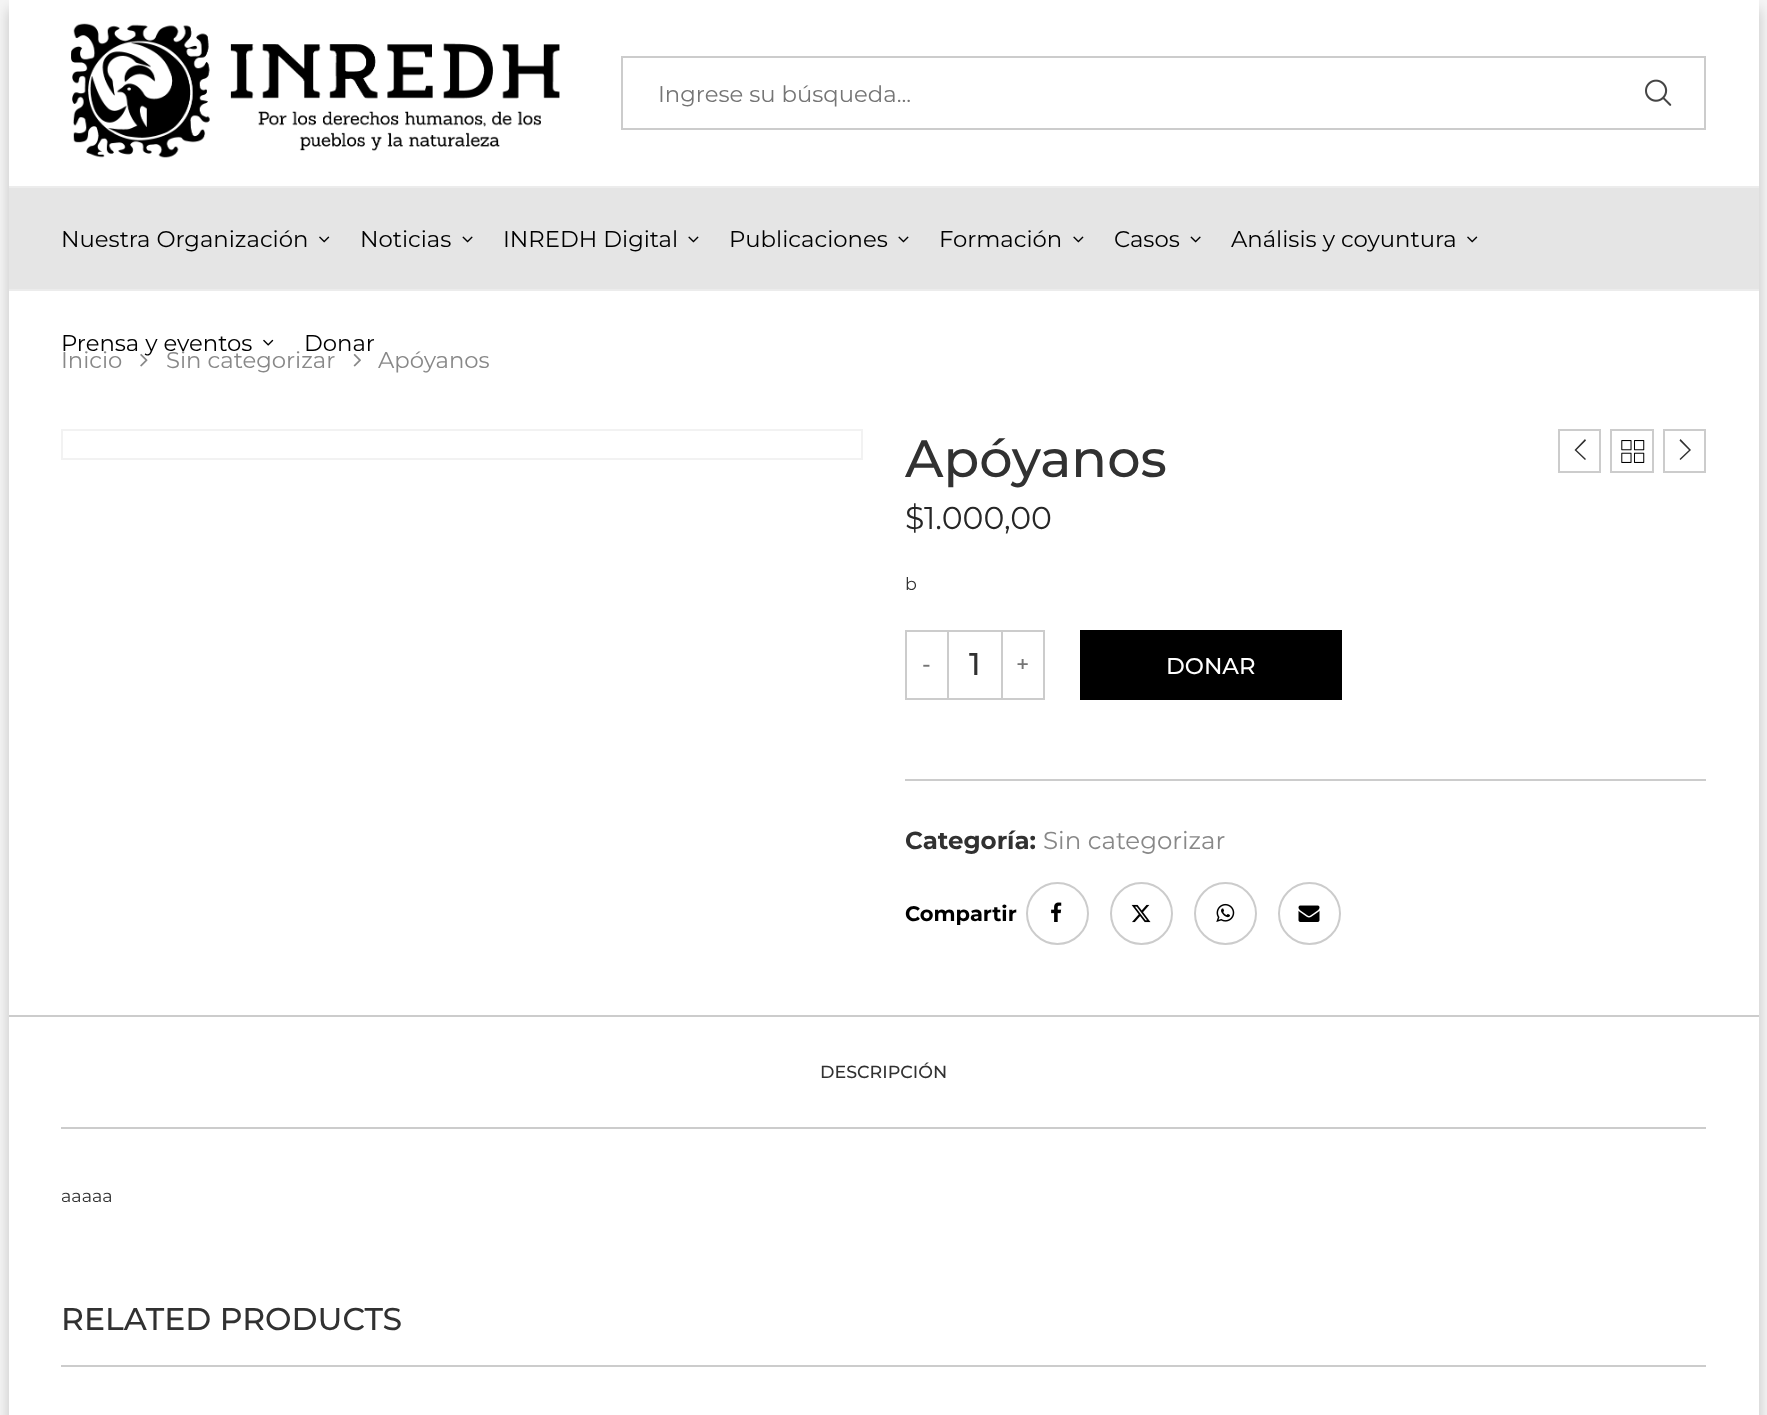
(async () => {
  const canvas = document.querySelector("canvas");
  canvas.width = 1767;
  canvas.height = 1415;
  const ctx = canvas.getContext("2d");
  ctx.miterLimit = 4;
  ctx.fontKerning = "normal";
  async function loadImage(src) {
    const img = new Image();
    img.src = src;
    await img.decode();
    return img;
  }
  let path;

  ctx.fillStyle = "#f5f5f5";
  ctx.fillRect(0, 0, 1767, 1415);
  ctx.fillStyle = "rgba(0, 0, 0, 0.2)";
  ctx.filter = "blur(7px)";
  ctx.beginPath();
  ctx.rect(9, 9, 1750, 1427);
  ctx.fill();
  ctx.filter = "none";
  ctx.fillStyle = "#ffffff";
  ctx.fillRect(9, 0, 1750, 1415);
  ctx.drawImage(await loadImage("img/1.png"), 71, 23, 489, 135);
  ctx.strokeStyle = "#cccccc";
  ctx.lineWidth = 2;
  ctx.strokeRect(622, 57, 1083, 72);
  ctx.drawImage(await loadImage("img/2.png"), 1645, 79, 27, 27);
  for (const [x, y, w, h, color] of [
    [9, 188, 1750, 101, "#e5e5e5"],
    [9, 186, 1750, 2, "#ececec"],
    [9, 289, 1750, 2, "#ececec"],
  ]) {
    ctx.fillStyle = color;
    ctx.fillRect(x, y, w, h);
  }
  ctx.drawImage(await loadImage("img/3.png"), 319, 236, 11, 7);
  ctx.drawImage(await loadImage("img/4.png"), 462, 236, 11, 7);
  ctx.drawImage(await loadImage("img/5.png"), 688, 236, 11, 7);
  ctx.drawImage(await loadImage("img/6.png"), 898, 236, 11, 7);
  ctx.drawImage(await loadImage("img/7.png"), 1073, 236, 11, 7);
  ctx.drawImage(await loadImage("img/8.png"), 1190, 236, 11, 7);
  ctx.drawImage(await loadImage("img/9.png"), 1467, 236, 11, 7);
  ctx.drawImage(await loadImage("img/10.png"), 263, 339, 11, 7);
  ctx.drawImage(await loadImage("img/12.png"), 353, 353, 8, 14);
  ctx.fillStyle = "#cccccc";
  ctx.fillRect(9, 1015, 1750, 2);
  ctx.strokeStyle = "#f2f2f2";
  ctx.strokeRect(62, 430, 800, 29);
  ctx.strokeStyle = "#cccccc";
  ctx.strokeRect(906, 631, 42, 68);
  ctx.fillRect(949, 630, 52, 2);
  ctx.fillRect(949, 698, 52, 2);
  ctx.strokeRect(1002, 631, 42, 68);
  ctx.fillStyle = "#000000";
  ctx.fillRect(1080, 630, 262, 70);
  ctx.fillStyle = "#cccccc";
  ctx.fillRect(905, 779, 801, 2);
  ctx.beginPath();
  ctx.arc(1057.5, 913.5, 30.5, 0, Math.PI * 2);
  ctx.stroke();
  ctx.drawImage(await loadImage("img/13.png"), 1051, 902, 11, 20);
  ctx.beginPath();
  ctx.arc(1141.5, 913.5, 30.5, 0, Math.PI * 2);
  ctx.stroke();
  ctx.drawImage(await loadImage("img/14.png"), 1131, 904, 20, 19);
  ctx.beginPath();
  ctx.arc(1225.5, 913.5, 30.5, 0, Math.PI * 2);
  ctx.stroke();
  ctx.drawImage(await loadImage("img/15.png"), 1216, 903, 19, 19);
  ctx.beginPath();
  ctx.arc(1309.5, 913.5, 30.5, 0, Math.PI * 2);
  ctx.stroke();
  ctx.drawImage(await loadImage("img/16.png"), 1298, 905, 22, 17);
  ctx.strokeRect(1559, 430, 41, 42);
  ctx.fillStyle = "#313131";
  path = new Path2D("M1586 440.5L1585 439L1574.5 450L1585 460L1586 459L1576.5 450Z");
  ctx.fill(path);
  ctx.strokeRect(1611, 430, 42, 42);
  ctx.drawImage(await loadImage("img/17.png"), 1621, 440, 24, 23);
  ctx.strokeRect(1664, 430, 41, 42);
  path = new Path2D("M1680.5 439L1679.5 440.5L1689 450L1679.5 459L1680.5 460L1691 450Z");
  ctx.fill(path);
  ctx.fillStyle = "#cccccc";
  ctx.fillRect(61, 1127, 1645, 2);
  ctx.fillRect(61, 1365, 1645, 2);
  ctx.font = "22.75px Montserrat";
  ctx.fillStyle = "#757575";
  ctx.fillText("Ingrese su búsqueda...", 658, 102);
  ctx.fillStyle = "#000000";
  for (const [text, x, y] of [
    ["Nuestra Organización", 61, 247],
    ["Noticias", 360, 247],
    ["INREDH Digital", 503, 247],
    ["Publicaciones", 729, 247],
    ["Formación", 939, 247],
    ["Casos", 1114, 247],
    ["Análisis y coyuntura", 1231, 247],
    ["Prensa y eventos", 61, 351],
    ["Donar", 304, 351],
  ]) {
    ctx.fillText(text, x, y);
  }
  ctx.fillStyle = "#888888";
  ctx.fillText("Inicio", 61, 368);
  ctx.drawImage(await loadImage("img/11.png"), 140, 353, 8, 14);
  ctx.fillText("Sin categorizar", 166, 368);
  ctx.fillText("Apóyanos", 378, 368);
  ctx.font = "500 52.5px Montserrat";
  ctx.fillStyle = "#313131";
  ctx.fillText("Apóyanos", 905, 477);
  ctx.font = "31.5px Montserrat";
  ctx.fillStyle = "#262626";
  ctx.fillText("$", 905, 529);
  ctx.fillText("1.000,00", 924, 529);
  ctx.font = "17.5px Montserrat";
  ctx.fillStyle = "#313131";
  ctx.fillText("b", 905, 590);
  ctx.font = "500 22.75px Montserrat";
  ctx.fillStyle = "#757575";
  ctx.fillText("-", 922, 672);
  ctx.font = "500 31.5px Montserrat";
  ctx.fillStyle = "#313131";
  ctx.fillText("1", 969, 675);
  ctx.font = "500 22.75px Montserrat";
  ctx.fillStyle = "#757575";
  ctx.fillText("+", 1016, 672);
  ctx.fillStyle = "#ffffff";
  ctx.fillText("DONAR", 1166, 674);
  ctx.font = "bold 24.5px Montserrat";
  ctx.fillStyle = "#313131";
  ctx.fillText("Categoría:", 905, 849);
  ctx.font = "24.5px Montserrat";
  ctx.fillStyle = "#888888";
  ctx.fillText("Sin categorizar", 1043, 849);
  ctx.font = "bold 21px Montserrat";
  ctx.fillStyle = "#000000";
  ctx.fillText("Compartir", 905, 921);
  ctx.font = "500 17.5px Montserrat";
  ctx.fillStyle = "#313131";
  ctx.fillText("DESCRIPCIÓN", 820, 1078);
  ctx.font = "17.5px Montserrat";
  ctx.fillText("aaaaa", 61, 1202);
  ctx.font = "500 31.5px Montserrat";
  ctx.fillText("RELATED PRODUCTS", 61, 1330);
})();
